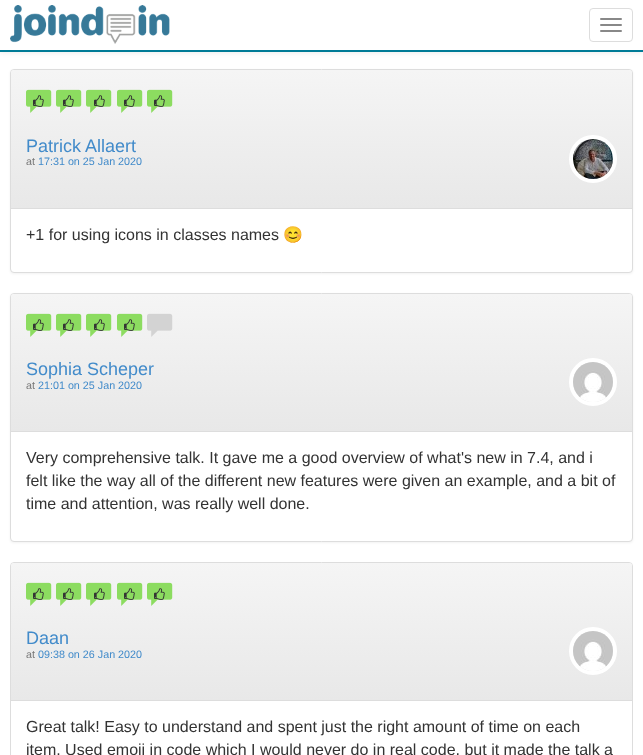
(async () => {
  const canvas = document.querySelector("canvas");
  canvas.width = 643;
  canvas.height = 755;
  const ctx = canvas.getContext("2d");
  ctx.miterLimit = 4;
  ctx.fontKerning = "normal";
  async function loadImage(src) {
    const img = new Image();
    img.src = src;
    await img.decode();
    return img;
  }
  let gradient;

  ctx.fillStyle = "#ffffff";
  ctx.fillRect(0, 0, 643, 755);
  ctx.fillStyle = "rgba(0, 0, 0, 0.07)";
  ctx.filter = "blur(2.5px)";
  ctx.beginPath();
  ctx.rect(0, 1, 643, 52);
  ctx.fill();
  ctx.filter = "none";
  ctx.fillStyle = "#ffffff";
  ctx.fillRect(0, 0, 643, 50);
  ctx.fillStyle = "#007b97";
  ctx.fillRect(0, 50, 643, 2);
  ctx.drawImage(await loadImage("img/1.png"), 10, 5, 160, 39);
  ctx.beginPath();
  ctx.roundRect(589.5, 8.5, 43, 33, 3.5);
  ctx.strokeStyle = "#dddddd";
  ctx.stroke();
  ctx.fillStyle = "#888888";
  ctx.beginPath();
  ctx.roundRect(600, 18, 22, 2, 1);
  ctx.fill();
  ctx.beginPath();
  ctx.roundRect(600, 24, 22, 2, 1);
  ctx.fill();
  ctx.beginPath();
  ctx.roundRect(600, 30, 22, 2, 1);
  ctx.fill();
  ctx.fillStyle = "rgba(0, 0, 0, 0.05)";
  ctx.filter = "blur(1px)";
  ctx.beginPath();
  ctx.roundRect(10, 70, 623, 204, 4);
  ctx.fill();
  ctx.filter = "none";
  ctx.fillStyle = "#ffffff";
  ctx.beginPath();
  ctx.roundRect(10.5, 69.5, 622, 203, 3.5);
  ctx.fill();
  ctx.stroke();
  gradient = ctx.createLinearGradient(322, 70, 322, 208);
  gradient.addColorStop(0, "#f5f5f5");
  gradient.addColorStop(1, "#e8e8e8");
  ctx.fillStyle = gradient;
  ctx.beginPath();
  ctx.roundRect(11, 70, 621, 138, [3, 3, 0, 0]);
  ctx.fill();
  ctx.fillStyle = "#dddddd";
  ctx.fillRect(11, 208, 621, 1);
  ctx.drawImage(await loadImage("img/2.png"), 26, 89, 26, 24);
  ctx.drawImage(await loadImage("img/3.png"), 33, 95, 11, 12);
  ctx.drawImage(await loadImage("img/2.png"), 56, 89, 26, 24);
  ctx.drawImage(await loadImage("img/3.png"), 63, 95, 11, 12);
  ctx.drawImage(await loadImage("img/2.png"), 86, 89, 26, 24);
  ctx.drawImage(await loadImage("img/4.png"), 94, 95, 11, 12);
  ctx.drawImage(await loadImage("img/2.png"), 117, 89, 26, 24);
  ctx.drawImage(await loadImage("img/3.png"), 124, 95, 11, 12);
  ctx.drawImage(await loadImage("img/2.png"), 147, 89, 26, 24);
  ctx.drawImage(await loadImage("img/3.png"), 154, 95, 11, 12);
  ctx.beginPath();
  ctx.arc(593, 159, 22, 0, Math.PI * 2);
  ctx.strokeStyle = "#ffffff";
  ctx.lineWidth = 4;
  ctx.stroke();
  ctx.drawImage(await loadImage("img/5.png"), 573, 139, 40, 40);
  ctx.fillStyle = "rgba(0, 0, 0, 0.05)";
  ctx.filter = "blur(1px)";
  ctx.beginPath();
  ctx.roundRect(10, 294, 623, 249, 4);
  ctx.fill();
  ctx.filter = "none";
  ctx.fillStyle = "#ffffff";
  ctx.beginPath();
  ctx.roundRect(10.5, 293.5, 622, 248, 3.5);
  ctx.fill();
  ctx.strokeStyle = "#dddddd";
  ctx.lineWidth = 1;
  ctx.stroke();
  gradient = ctx.createLinearGradient(322, 294, 322, 431);
  gradient.addColorStop(0, "#f5f5f5");
  gradient.addColorStop(1, "#e8e8e8");
  ctx.fillStyle = gradient;
  ctx.beginPath();
  ctx.roundRect(11, 294, 621, 137, [3, 3, 0, 0]);
  ctx.fill();
  ctx.fillStyle = "#dddddd";
  ctx.fillRect(11, 431, 621, 1);
  ctx.drawImage(await loadImage("img/6.png"), 26, 313, 26, 24);
  ctx.drawImage(await loadImage("img/3.png"), 33, 319, 11, 12);
  ctx.drawImage(await loadImage("img/6.png"), 56, 313, 26, 24);
  ctx.drawImage(await loadImage("img/3.png"), 63, 319, 11, 12);
  ctx.drawImage(await loadImage("img/6.png"), 86, 313, 26, 24);
  ctx.drawImage(await loadImage("img/4.png"), 94, 319, 11, 12);
  ctx.drawImage(await loadImage("img/6.png"), 117, 313, 26, 24);
  ctx.drawImage(await loadImage("img/3.png"), 124, 319, 11, 12);
  ctx.drawImage(await loadImage("img/7.png"), 147, 313, 26, 24);
  ctx.beginPath();
  ctx.arc(593, 382, 22, 0, Math.PI * 2);
  ctx.strokeStyle = "#ffffff";
  ctx.lineWidth = 4;
  ctx.stroke();
  ctx.drawImage(await loadImage("img/8.png"), 573, 362, 40, 40);
  ctx.beginPath();
  ctx.roundRect(10.5, 562.5, 622, 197, 3.5);
  ctx.strokeStyle = "#dddddd";
  ctx.lineWidth = 1;
  ctx.stroke();
  gradient = ctx.createLinearGradient(322, 563, 322, 700);
  gradient.addColorStop(0, "#f5f5f5");
  gradient.addColorStop(1, "#e8e8e8");
  ctx.fillStyle = gradient;
  ctx.beginPath();
  ctx.roundRect(11, 563, 621, 137, [3, 3, 0, 0]);
  ctx.fill();
  ctx.fillStyle = "#dddddd";
  ctx.fillRect(11, 700, 621, 1);
  ctx.drawImage(await loadImage("img/6.png"), 26, 582, 26, 24);
  ctx.drawImage(await loadImage("img/3.png"), 33, 588, 11, 12);
  ctx.drawImage(await loadImage("img/6.png"), 56, 582, 26, 24);
  ctx.drawImage(await loadImage("img/3.png"), 63, 588, 11, 12);
  ctx.drawImage(await loadImage("img/6.png"), 86, 582, 26, 24);
  ctx.drawImage(await loadImage("img/4.png"), 94, 588, 11, 12);
  ctx.drawImage(await loadImage("img/6.png"), 117, 582, 26, 24);
  ctx.drawImage(await loadImage("img/3.png"), 124, 588, 11, 12);
  ctx.drawImage(await loadImage("img/6.png"), 147, 582, 26, 24);
  ctx.drawImage(await loadImage("img/3.png"), 154, 588, 11, 12);
  ctx.beginPath();
  ctx.arc(593, 651, 22, 0, Math.PI * 2);
  ctx.strokeStyle = "#ffffff";
  ctx.lineWidth = 4;
  ctx.stroke();
  ctx.drawImage(await loadImage("img/8.png"), 573, 631, 40, 40);
  ctx.font = "18px Liberation Sans";
  ctx.fillStyle = "#428bca";
  ctx.fillText("Patrick Allaert", 26, 152);
  ctx.font = "10.75px Liberation Sans";
  ctx.fillStyle = "#777777";
  ctx.fillText("at", 26, 165);
  ctx.fillStyle = "#428bca";
  ctx.fillText("17:31 on 25 Jan 2020", 38, 165);
  ctx.font = "16px Liberation Sans";
  ctx.fillStyle = "#333333";
  ctx.fillText("+1 for using icons in classes names", 26, 240);
  ctx.font = "16px Noto Color Emoji";
  ctx.fillText("😊", 283, 240);
  ctx.font = "18px Liberation Sans";
  ctx.fillStyle = "#428bca";
  ctx.fillText("Sophia Scheper", 26, 375);
  ctx.font = "10.75px Liberation Sans";
  ctx.fillStyle = "#777777";
  ctx.fillText("at", 26, 389);
  ctx.fillStyle = "#428bca";
  ctx.fillText("21:01 on 25 Jan 2020", 38, 389);
  ctx.font = "16px Liberation Sans";
  ctx.fillStyle = "#333333";
  for (const [text, x, y] of [
    ["Very comprehensive talk. It gave me a good overview of what's new in 7.4, and i", 26, 463],
    ["felt like the way all of the different new features were given an example, and a bit of", 26, 486],
    ["time and attention, was really well done.", 26, 509],
  ]) {
    ctx.fillText(text, x, y);
  }
  ctx.font = "18px Liberation Sans";
  ctx.fillStyle = "#428bca";
  ctx.fillText("Daan", 26, 644);
  ctx.font = "10.75px Liberation Sans";
  ctx.fillStyle = "#777777";
  ctx.fillText("at", 26, 658);
  ctx.fillStyle = "#428bca";
  ctx.fillText("09:38 on 26 Jan 2020", 38, 658);
  ctx.font = "16px Liberation Sans";
  ctx.fillStyle = "#333333";
  ctx.fillText("Great talk! Easy to understand and spent just the right amount of time on each", 26, 732);
  ctx.fillText("item. Used emoji in code which I would never do in real code, but it made the talk a", 26, 755);
})();
